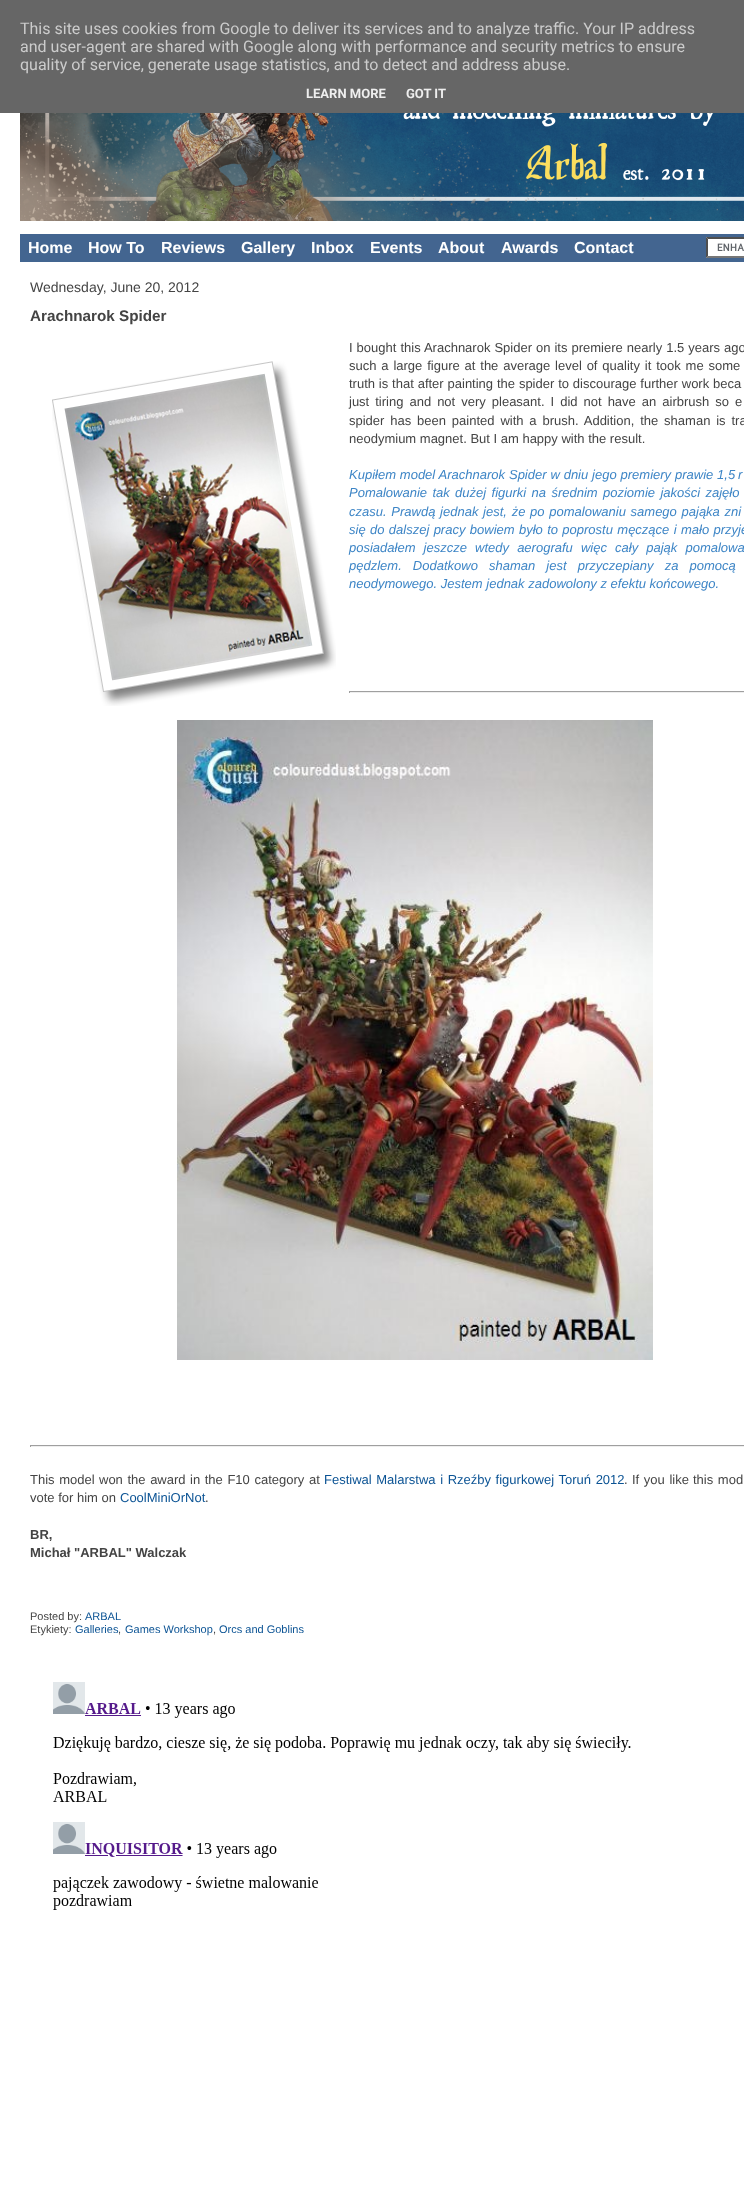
(async () => {
  const canvas = document.querySelector("canvas");
  canvas.width = 744;
  canvas.height = 2208;
  const ctx = canvas.getContext("2d");
  ctx.miterLimit = 4;
  ctx.fontKerning = "normal";
  async function loadImage(src) {
    const img = new Image();
    img.src = src;
    await img.decode();
    return img;
  }
  let path;

  ctx.fillStyle = "#ffffff";
  ctx.fillRect(0, 0, 744, 2208);
  ctx.fillStyle = "#666666";
  ctx.fillRect(0, 0, 744, 113);
  ctx.drawImage(await loadImage("img/1.png"), 20, 113, 724, 108);
  ctx.fillStyle = "#436590";
  ctx.fillRect(20, 234, 724, 28);
  ctx.fillStyle = "#ffffff";
  ctx.fillRect(706, 237, 38, 21);
  ctx.drawImage(await loadImage("img/2.png"), 717, 243, 27, 8);
  ctx.fillStyle = "#4f4f4f";
  path = new Path2D("M706 237H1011L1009 239H708Z");
  ctx.fill(path);
  ctx.fillStyle = "#767676";
  path = new Path2D("M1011 258H706L708 256H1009Z");
  ctx.fill(path);
  ctx.fillStyle = "#4f4f4f";
  path = new Path2D("M706 258V237L708 239V256Z");
  ctx.fill(path);
  ctx.drawImage(await loadImage("img/3.png"), 52, 361, 284, 345);
  for (const [x, y, w, h, color] of [
    [349, 691, 395, 1, "#9f9f9f"],
    [349, 692, 395, 1, "#eeeeee"],
    [349, 691, 1, 2, "#9f9f9f"],
  ]) {
    ctx.fillStyle = color;
    ctx.fillRect(x, y, w, h);
  }
  ctx.drawImage(await loadImage("img/4.png"), 177, 720, 476, 640);
  for (const [x, y, w, h, color] of [
    [30, 1445, 714, 1, "#9f9f9f"],
    [30, 1446, 714, 1, "#eeeeee"],
    [30, 1445, 1, 2, "#9f9f9f"],
  ]) {
    ctx.fillStyle = color;
    ctx.fillRect(x, y, w, h);
  }
  ctx.drawImage(await loadImage("img/5.png"), 53, 1682, 578, 228);
  ctx.font = "16px Roboto";
  ctx.fillStyle = "#cccccc";
  for (const [text, x, y] of [
    ["This site uses cookies from Google to deliver its services and to analyze traffic. Your IP address", 20, 34],
    ["and user-agent are shared with Google along with performance and security metrics to ensure", 20, 52],
    ["quality of service, generate usage statistics, and to detect and address abuse.", 20, 70],
  ]) {
    ctx.fillText(text, x, y);
  }
  ctx.font = "bold 13px Roboto";
  ctx.fillStyle = "#eeeeee";
  ctx.fillText("LEARN MORE", 306, 98);
  ctx.fillText("GOT IT", 406, 98);
  ctx.font = "bold 16px Liberation Sans";
  ctx.fillStyle = "#ffffff";
  for (const [text, x, y] of [
    ["Home", 28, 253],
    ["How To", 88, 253],
    ["Reviews", 161, 253],
    ["Gallery", 241, 253],
    ["Inbox", 311, 253],
    ["Events", 370, 253],
    ["About", 438, 253],
    ["Awards", 501, 253],
    ["Contact", 574, 253],
  ]) {
    ctx.fillText(text, x, y);
  }
  ctx.font = "14px Liberation Sans";
  ctx.fillStyle = "#444444";
  ctx.fillText("Wednesday, June 20, 2012", 30, 292);
  ctx.font = "bold 15.25px Liberation Sans";
  ctx.fillText("Arachnarok Spider", 30, 321);
  ctx.wordSpacing = "0.4px";
  ctx.font = "13px Liberation Sans";
  ctx.fillText("I bought this Arachnarok Spider on its premiere nearly 1.5 years ago", 349, 352);
  ctx.wordSpacing = "1.25px";
  ctx.fillText("such a large figure at the average level of quality it took me some", 349, 370);
  ctx.wordSpacing = "0.25px";
  ctx.fillText("truth is that after painting the spider to discourage further work beca", 349, 388);
  ctx.wordSpacing = "2.4px";
  ctx.fillText("just tiring and not very pleasant. I did not have an airbrush so e", 349, 406);
  ctx.wordSpacing = "2.25px";
  ctx.fillText("spider has been painted with a brush. Addition, the shaman is tra", 349, 425);
  ctx.wordSpacing = "0px";
  ctx.fillText("neodymium magnet. But I am happy with the result.", 349, 443);
  ctx.wordSpacing = "0.25px";
  ctx.font = "italic 13px Liberation Sans";
  ctx.fillStyle = "#3d85c6";
  ctx.fillText("Kupiłem model Arachnarok Spider w dniu jego premiery prawie 1,5", 349, 479);
  ctx.wordSpacing = "0px";
  ctx.fillText("r", 738, 479);
  ctx.wordSpacing = "1.75px";
  ctx.fillText("Pomalowanie tak dużej figurki na średnim poziomie jakości zajęło", 349, 497);
  ctx.wordSpacing = "1.1px";
  ctx.fillText("czasu. Prawdą jednak jest, że po pomalowaniu samego pająka zni", 349, 516);
  ctx.wordSpacing = "0.75px";
  ctx.fillText("się do dalszej pracy bowiem było to poprostu męczące i mało przyje", 349, 534);
  ctx.wordSpacing = "4.5px";
  ctx.fillText("posiadałem jeszcze wtedy aerografu więc cały pająk pomalowa", 349, 552);
  ctx.wordSpacing = "7.5px";
  ctx.fillText("pędzlem. Dodatkowo shaman jest przyczepiany za pomocą", 349, 570);
  ctx.wordSpacing = "0px";
  ctx.fillText("neodymowego. Jestem jednak zadowolony z efektu końcowego.", 349, 588);
  ctx.wordSpacing = "1px";
  ctx.font = "13px Liberation Sans";
  ctx.fillStyle = "#444444";
  for (const [text, x, y] of [
    ["This model", 30, 1484],
    ["won the award", 99, 1484],
    ["in the F10 category", 190, 1484],
  ]) {
    ctx.fillText(text, x, y);
  }
  ctx.wordSpacing = "0px";
  ctx.fillText("at", 309, 1484);
  ctx.wordSpacing = "1px";
  ctx.fillStyle = "#0b5394";
  ctx.fillText("Festiwal Malarstwa i Rzeźby figurkowej Toruń 2012", 324, 1484);
  ctx.wordSpacing = "0px";
  ctx.fillStyle = "#444444";
  ctx.fillText(".", 624, 1484);
  ctx.wordSpacing = "1px";
  ctx.fillText("If you like", 632, 1484);
  ctx.fillText("this mod", 693, 1484);
  ctx.wordSpacing = "0px";
  ctx.fillText("vote for him on", 30, 1502);
  ctx.fillStyle = "#0b5394";
  ctx.fillText("CoolMiniOrNot", 120, 1502);
  ctx.fillStyle = "#444444";
  ctx.fillText(".", 205, 1502);
  ctx.font = "bold 13px Liberation Sans";
  ctx.fillText("BR,", 30, 1539);
  ctx.fillText("Michał \"ARBAL\" Walczak", 30, 1557);
  ctx.font = "11px Liberation Sans";
  ctx.fillText("Posted by:", 30, 1620);
  ctx.fillStyle = "#0b5394";
  ctx.fillText("ARBAL", 85, 1620);
  ctx.fillStyle = "#444444";
  ctx.fillText("Etykiety:", 30, 1633);
  ctx.fillStyle = "#0b5394";
  ctx.fillText("Galleries", 75, 1633);
  ctx.fillStyle = "#444444";
  ctx.fillText(",", 118, 1633);
  ctx.fillStyle = "#0b5394";
  ctx.fillText("Games Workshop", 125, 1633);
  ctx.fillStyle = "#444444";
  ctx.fillText(",", 213, 1633);
  ctx.fillStyle = "#0b5394";
  ctx.fillText("Orcs and Goblins", 219, 1633);
})();
